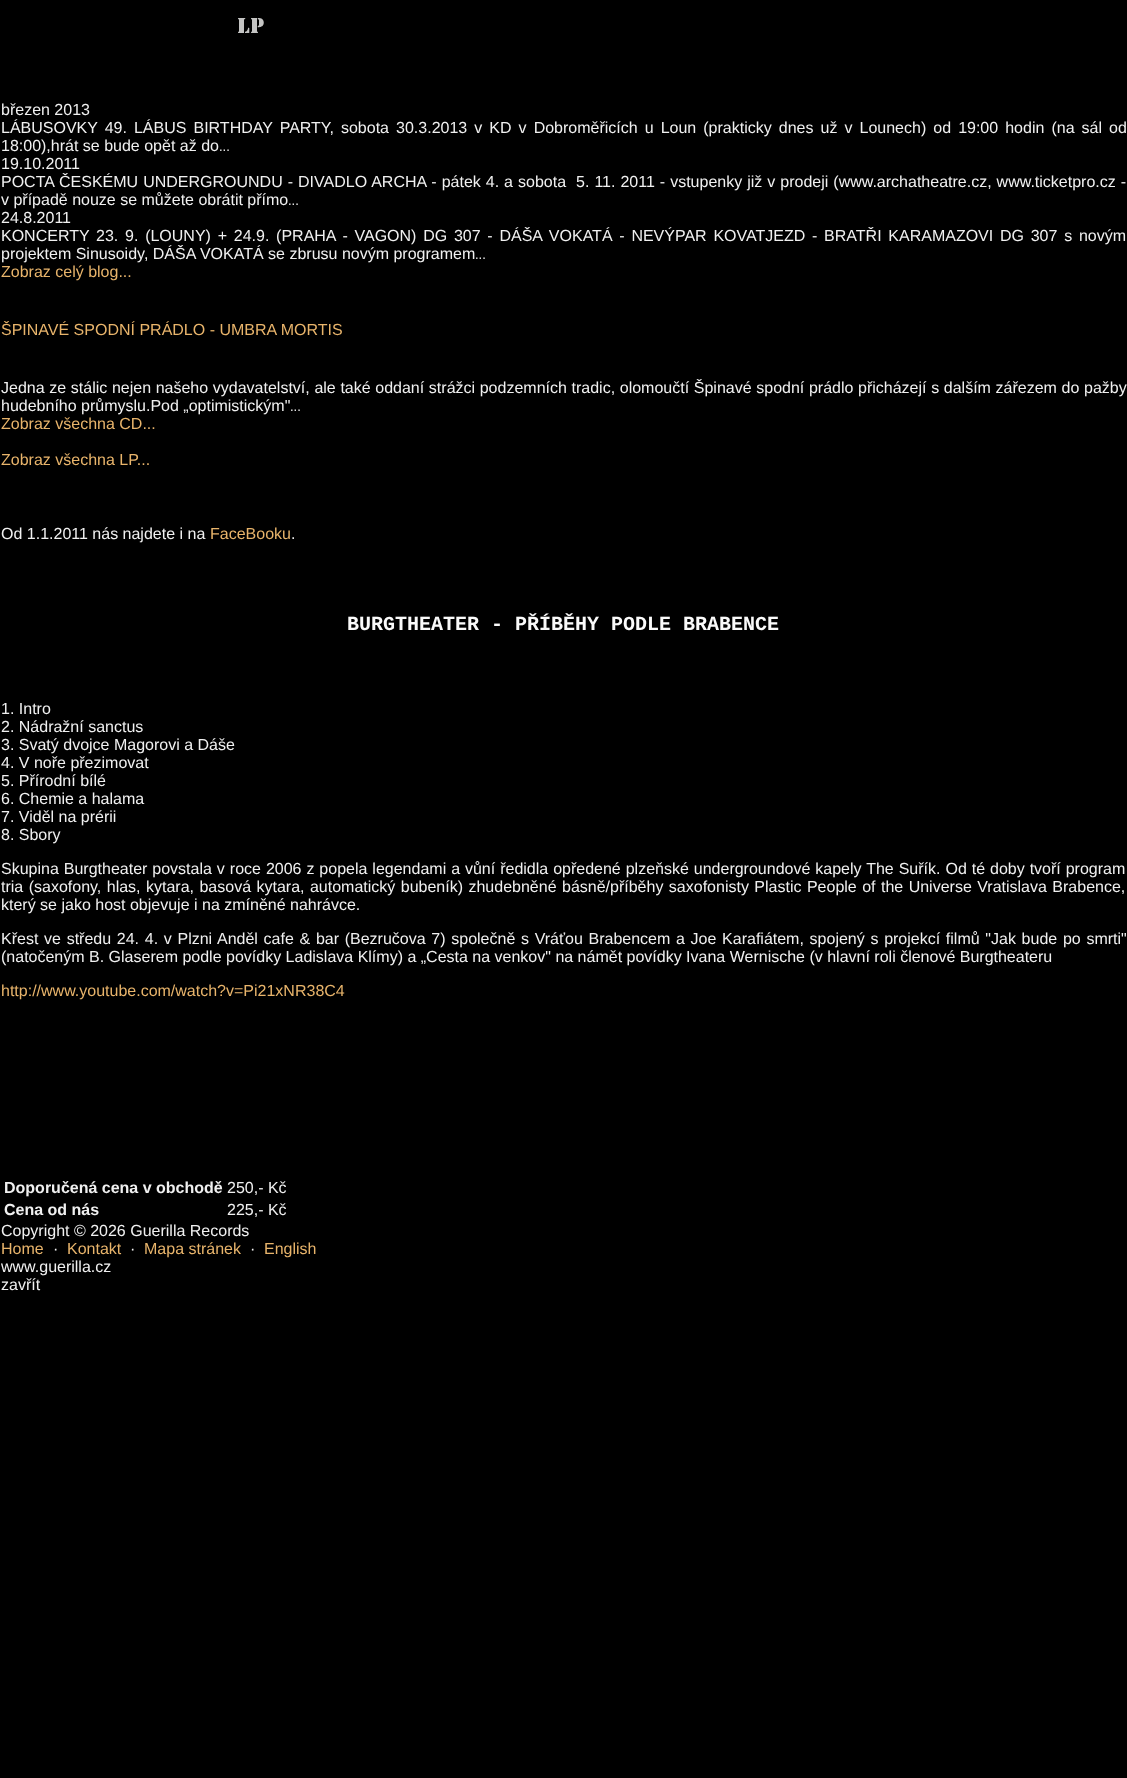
(async () => {
  const canvas = document.querySelector("canvas");
  canvas.width = 1127;
  canvas.height = 1778;
  const ctx = canvas.getContext("2d");
  ctx.miterLimit = 4;
  ctx.fontKerning = "normal";
  async function loadImage(src) {
    const img = new Image();
    img.src = src;
    await img.decode();
    return img;
  }

  ctx.fillStyle = "#000000";
  ctx.fillRect(0, 0, 1127, 1778);
  ctx.drawImage(await loadImage("img/1.png"), 238, 18, 26, 15);
  ctx.font = "16px Liberation Sans";
  ctx.fillStyle = "#f0f0f0";
  ctx.fillText("březen 2013", 1, 115);
  ctx.wordSpacing = "2.6px";
  ctx.fillText("LÁBUSOVKY 49. LÁBUS BIRTHDAY PARTY, sobota 30.3.2013 v KD v Dobroměřicích u Loun (prakticky dnes už v Lounech) od 19:00 hodin (na sál od", 1, 133);
  ctx.wordSpacing = "0px";
  ctx.fillText("18:00),hrát se bude opět až do", 1, 151);
  ctx.font = "13px Liberation Sans";
  ctx.fillText("...", 219, 151);
  ctx.font = "16px Liberation Sans";
  ctx.fillText("19.10.2011", 1, 169);
  ctx.wordSpacing = "0.55px";
  ctx.fillText("POCTA ČESKÉMU UNDERGROUNDU - DIVADLO ARCHA - pátek 4. a sobota  5. 11. 2011 - vstupenky již v prodeji (www.archatheatre.cz, www.ticketpro.cz -", 1, 187);
  ctx.wordSpacing = "0px";
  ctx.fillText("v případě nouze se můžete obrátit přímo", 1, 205);
  ctx.font = "13px Liberation Sans";
  ctx.fillText("...", 288, 205);
  ctx.font = "16px Liberation Sans";
  ctx.fillText("24.8.2011", 1, 223);
  ctx.wordSpacing = "2.3px";
  ctx.fillText("KONCERTY 23. 9. (LOUNY) + 24.9. (PRAHA - VAGON) DG 307 - DÁŠA VOKATÁ - NEVÝPAR KOVATJEZD - BRATŘI KARAMAZOVI DG 307 s novým", 1, 241);
  ctx.wordSpacing = "0px";
  ctx.fillText("projektem Sinusoidy, DÁŠA VOKATÁ se zbrusu novým programem", 1, 259);
  ctx.font = "13px Liberation Sans";
  ctx.fillText("...", 475, 259);
  ctx.font = "16px Liberation Sans";
  ctx.fillStyle = "#e8b46b";
  ctx.fillText("Zobraz celý blog...", 1, 277);
  ctx.fillText("ŠPINAVÉ SPODNÍ PRÁDLO - UMBRA MORTIS", 1, 335);
  ctx.wordSpacing = "0.2px";
  ctx.fillStyle = "#f0f0f0";
  ctx.fillText("Jedna ze stálic nejen našeho vydavatelství, ale také oddaní strážci podzemních tradic, olomoučtí Špinavé spodní prádlo přicházejí s dalším zářezem do pažby", 1, 393);
  ctx.wordSpacing = "0px";
  ctx.fillText("hudebního průmyslu.Pod „optimistickým\"", 1, 411);
  ctx.font = "13px Liberation Sans";
  ctx.fillText("...", 290, 411);
  ctx.font = "16px Liberation Sans";
  ctx.fillStyle = "#e8b46b";
  ctx.fillText("Zobraz všechna CD...", 1, 429);
  ctx.fillText("Zobraz všechna LP...", 1, 465);
  ctx.fillStyle = "#f0f0f0";
  ctx.fillText("Od 1.1.2011 nás najdete i na", 1, 539);
  ctx.fillStyle = "#e8b46b";
  ctx.fillText("FaceBooku", 210, 539);
  ctx.fillStyle = "#f0f0f0";
  ctx.fillText(".", 291, 539);
  ctx.font = "bold 20px Liberation Mono";
  ctx.fillStyle = "#fafafa";
  ctx.fillText("BURGTHEATER - PŘÍBĚHY PODLE BRABENCE", 347, 630);
  ctx.font = "16px Liberation Sans";
  ctx.fillStyle = "#f0f0f0";
  for (const [text, x, y] of [
    ["1. Intro", 1, 714],
    ["2. Nádražní sanctus", 1, 732],
    ["3. Svatý dvojce Magorovi a Dáše", 1, 750],
    ["4. V noře přezimovat", 1, 768],
    ["5. Přírodní bílé", 1, 786],
    ["6. Chemie a halama", 1, 804],
    ["7. Viděl na prérii", 1, 822],
    ["8. Sbory", 1, 840],
  ]) {
    ctx.fillText(text, x, y);
  }
  ctx.wordSpacing = "0.5px";
  ctx.fillText("Skupina Burgtheater povstala v roce 2006 z popela legendami a vůní ředidla opředené plzeňské undergroundové kapely The Suřík. Od té doby tvoří program", 1, 874);
  ctx.wordSpacing = "1px";
  ctx.fillText("tria (saxofony, hlas, kytara, basová kytara, automatický bubeník) zhudebněné básně/příběhy saxofonisty Plastic People of the Universe Vratislava Brabence,", 1, 892);
  ctx.wordSpacing = "0px";
  ctx.fillText("který se jako host objevuje i na zmíněné nahrávce.", 1, 910);
  ctx.wordSpacing = "1.25px";
  ctx.fillText("Křest ve středu 24. 4. v Plzni Anděl cafe & bar (Bezručova 7) společně s Vráťou Brabencem a Joe Karafiátem, spojený s projekcí filmů \"Jak bude po smrti\"", 1, 944);
  ctx.wordSpacing = "0px";
  ctx.fillText("(natočeným B. Glaserem podle povídky Ladislava Klímy) a „Cesta na venkov\" na námět povídky Ivana Wernische (v hlavní roli členové Burgtheateru", 1, 962);
  ctx.fillStyle = "#e8b46b";
  ctx.fillText("http://www.youtube.com/watch?v=Pi21xNR38C4", 1, 996);
  ctx.font = "bold 16px Liberation Sans";
  ctx.fillStyle = "#f0f0f0";
  ctx.fillText("Doporučená cena v obchodě", 4, 1193);
  ctx.font = "16px Liberation Sans";
  ctx.fillText("250,- Kč", 227, 1193);
  ctx.font = "bold 16px Liberation Sans";
  ctx.fillText("Cena od nás", 4, 1215);
  ctx.font = "16px Liberation Sans";
  ctx.fillText("225,- Kč", 227, 1215);
  ctx.fillText("Copyright © 2026 Guerilla Records", 1, 1236);
  ctx.fillStyle = "#e8b46b";
  ctx.fillText("Home", 1, 1254);
  ctx.fillStyle = "#f0f0f0";
  ctx.fillText("·", 53, 1254);
  ctx.fillStyle = "#e8b46b";
  ctx.fillText("Kontakt", 67, 1254);
  ctx.fillStyle = "#f0f0f0";
  ctx.fillText("·", 130, 1254);
  ctx.fillStyle = "#e8b46b";
  ctx.fillText("Mapa stránek", 144, 1254);
  ctx.fillStyle = "#f0f0f0";
  ctx.fillText("·", 250, 1254);
  ctx.fillStyle = "#e8b46b";
  ctx.fillText("English", 264, 1254);
  ctx.fillStyle = "#f0f0f0";
  ctx.fillText("www.guerilla.cz", 1, 1272);
  ctx.fillText("zavřít", 1, 1290);
})();
